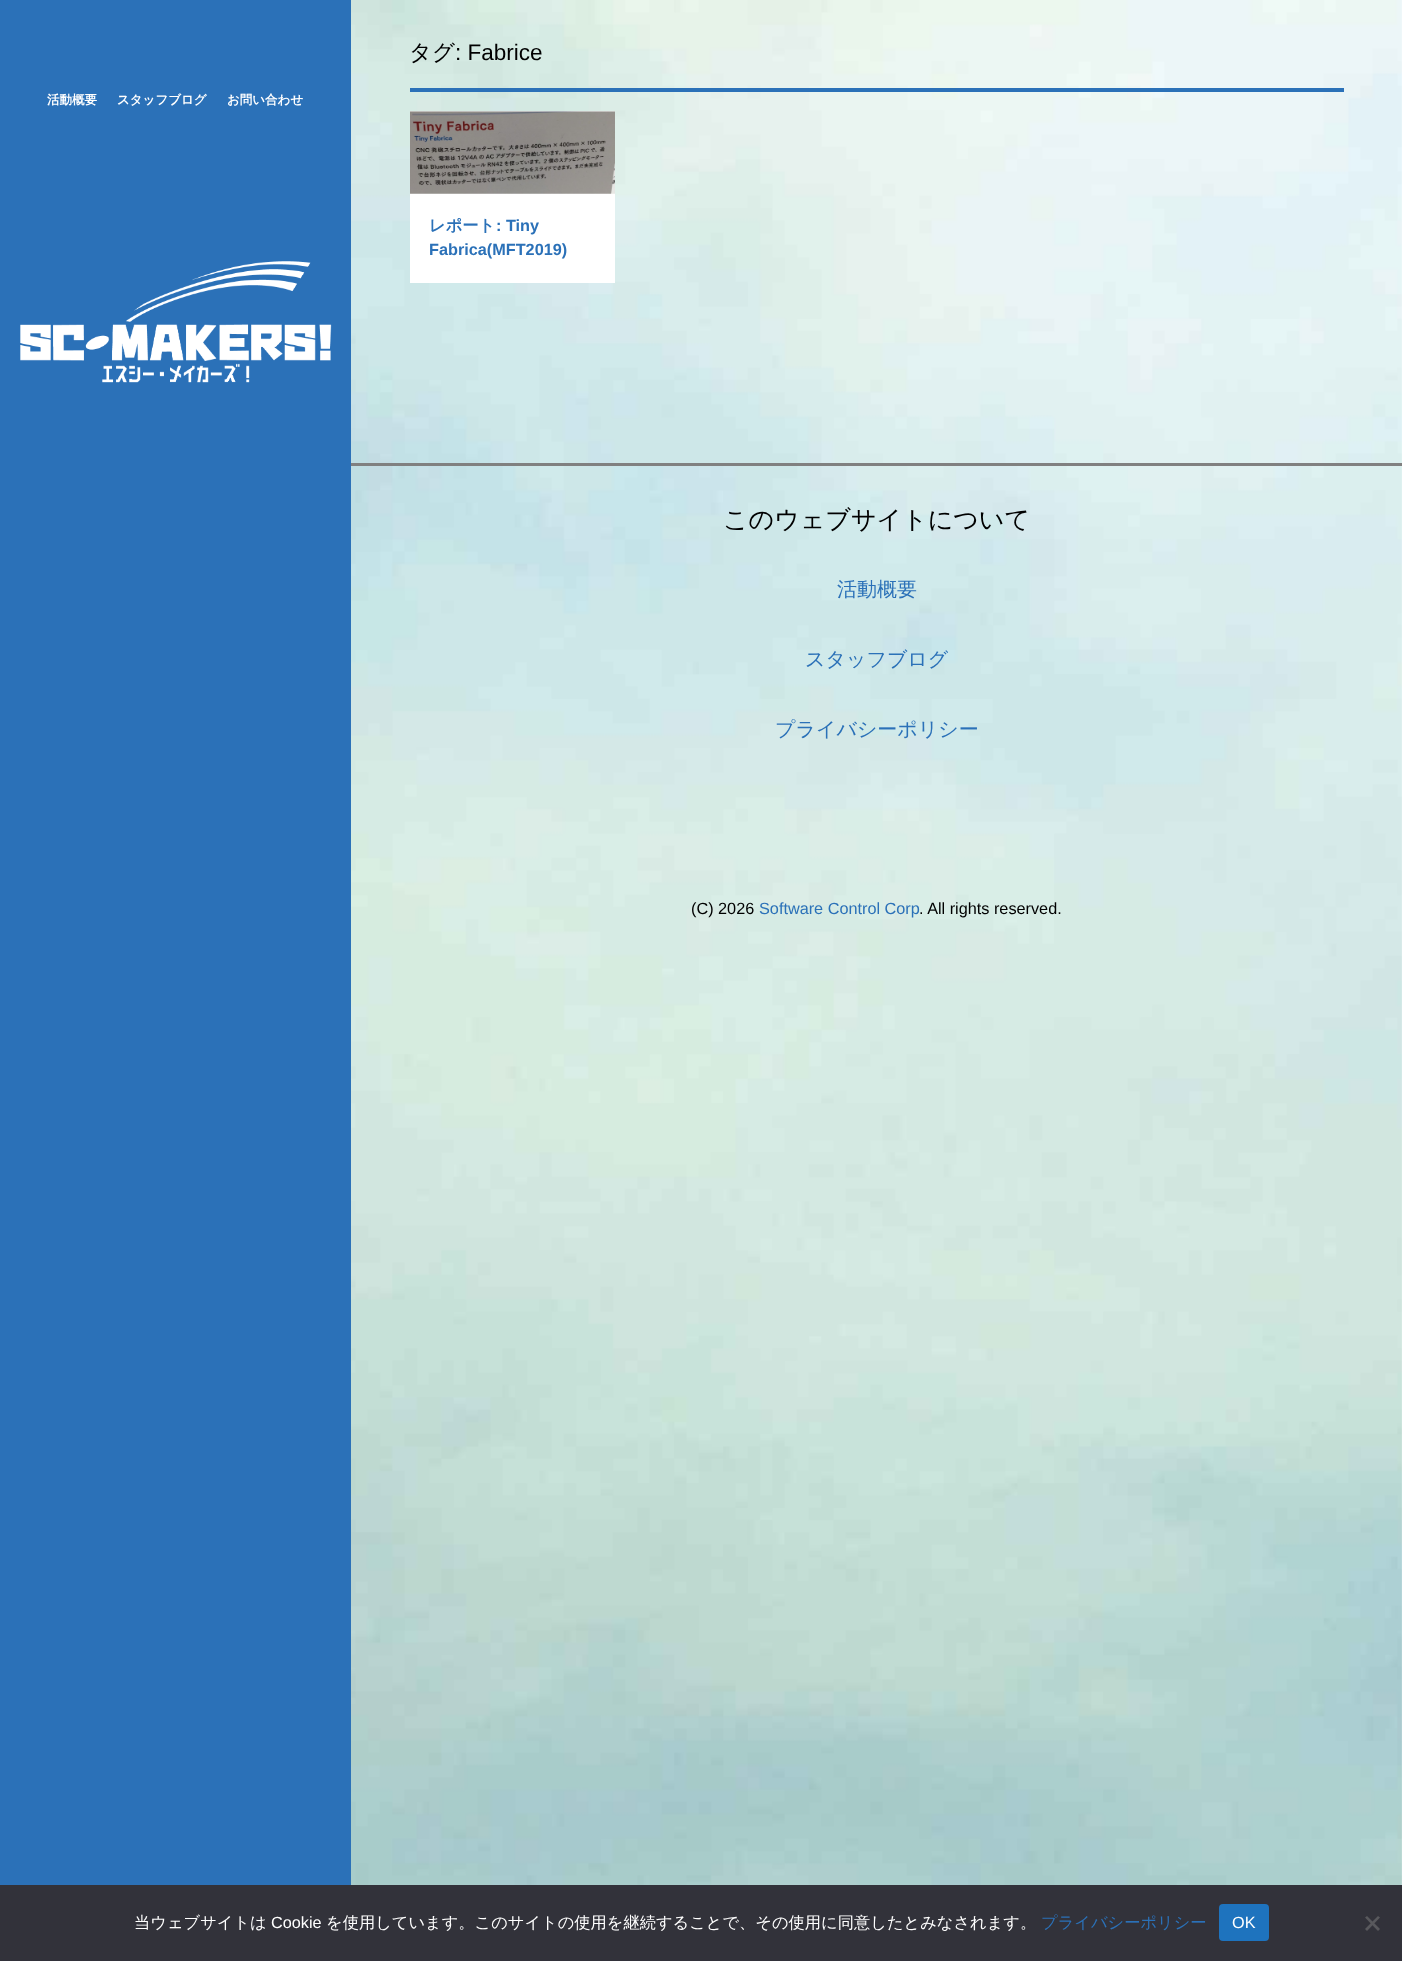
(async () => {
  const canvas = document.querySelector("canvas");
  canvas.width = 1402;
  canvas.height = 1961;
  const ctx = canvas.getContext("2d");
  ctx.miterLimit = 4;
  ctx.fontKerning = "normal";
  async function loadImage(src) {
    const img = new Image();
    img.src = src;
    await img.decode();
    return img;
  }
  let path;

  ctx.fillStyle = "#ffffff";
  ctx.fillRect(0, 0, 1402, 1961);
  ctx.drawImage(await loadImage("img/1.png"), 351, 0, 1051, 1885);
  ctx.fillStyle = "#2b71b8";
  ctx.fillRect(0, 0, 351, 1885);
  ctx.drawImage(await loadImage("img/2.png"), 20, 261, 312, 122);
  ctx.fillRect(410, 88, 934, 4);
  ctx.fillStyle = "#ffffff";
  ctx.fillRect(410, 111, 205, 172);
  ctx.drawImage(await loadImage("img/3.png"), 410, 111, 205, 83);
  ctx.fillStyle = "#808080";
  ctx.fillRect(351, 463, 1051, 3);
  ctx.fillStyle = "#32323a";
  ctx.fillRect(0, 1885, 1402, 76);
  ctx.fillStyle = "#1e73be";
  ctx.beginPath();
  ctx.roundRect(1219, 1904, 50, 37, 4);
  ctx.fill();
  ctx.fillStyle = "#59595d";
  path = new Path2D("M1378 1916L1380 1917.5L1367 1931L1365 1929Z");
  ctx.fill(path);
  path = new Path2D("M1365 1917.5L1367 1916L1380 1929L1378 1931Z");
  ctx.fill(path);
  ctx.font = "bold 12.5px WenQuanYi Zen Hei";
  ctx.fillStyle = "#ffffff";
  for (const [text, x, y] of [
    ["活動概要", 47, 104],
    ["スタッフブログ", 117, 104],
    ["お問い合わせ", 227, 104],
  ]) {
    ctx.fillText(text, x, y);
  }
  ctx.font = "500 22.5px WenQuanYi Zen Hei";
  ctx.fillStyle = "#000000";
  ctx.fillText("タグ", 409, 60);
  ctx.font = "22.5px Liberation Sans";
  ctx.fillText(": Fabrice", 455, 60);
  ctx.font = "bold 16.25px WenQuanYi Zen Hei";
  ctx.fillStyle = "#2b71b8";
  ctx.fillText("レポート", 429, 231);
  ctx.font = "bold 16.25px Liberation Sans";
  ctx.fillText(": Tiny", 496, 231);
  ctx.fillText("Fabrica(MFT2019)", 429, 255);
  ctx.font = "500 25px WenQuanYi Zen Hei";
  ctx.fillStyle = "#000000";
  ctx.fillText("このウェブサイトについて", 723, 528);
  ctx.font = "500 20px WenQuanYi Zen Hei";
  ctx.fillStyle = "#2b71b8";
  for (const [text, x, y] of [
    ["活動概要", 837, 596],
    ["スタッフブログ", 805, 666],
    ["プライバシーポリシー", 775, 736],
  ]) {
    ctx.fillText(text, x, y);
  }
  ctx.font = "16.25px Liberation Sans";
  ctx.fillStyle = "#000000";
  ctx.fillText("(C) 2026", 691, 914);
  ctx.fillStyle = "#2b71b8";
  ctx.fillText("Software Control Corp", 759, 914);
  ctx.fillStyle = "#000000";
  ctx.fillText(". All rights reserved.", 919, 914);
  ctx.font = "500 16.25px WenQuanYi Zen Hei";
  ctx.fillStyle = "#ffffff";
  ctx.fillText("当ウェブサイトは", 134, 1928);
  ctx.font = "16.25px Liberation Sans";
  ctx.fillText("Cookie", 271, 1928);
  ctx.font = "500 16.25px WenQuanYi Zen Hei";
  ctx.fillText("を使用しています。このサイトの使用を継続することで、その使用に同意したとみなされます。", 326, 1928);
  ctx.fillStyle = "#2b71b8";
  ctx.fillText("プライバシーポリシー", 1041, 1928);
  ctx.font = "16.25px Liberation Sans";
  ctx.fillStyle = "#ffffff";
  ctx.fillText("OK", 1232, 1928);
})();
